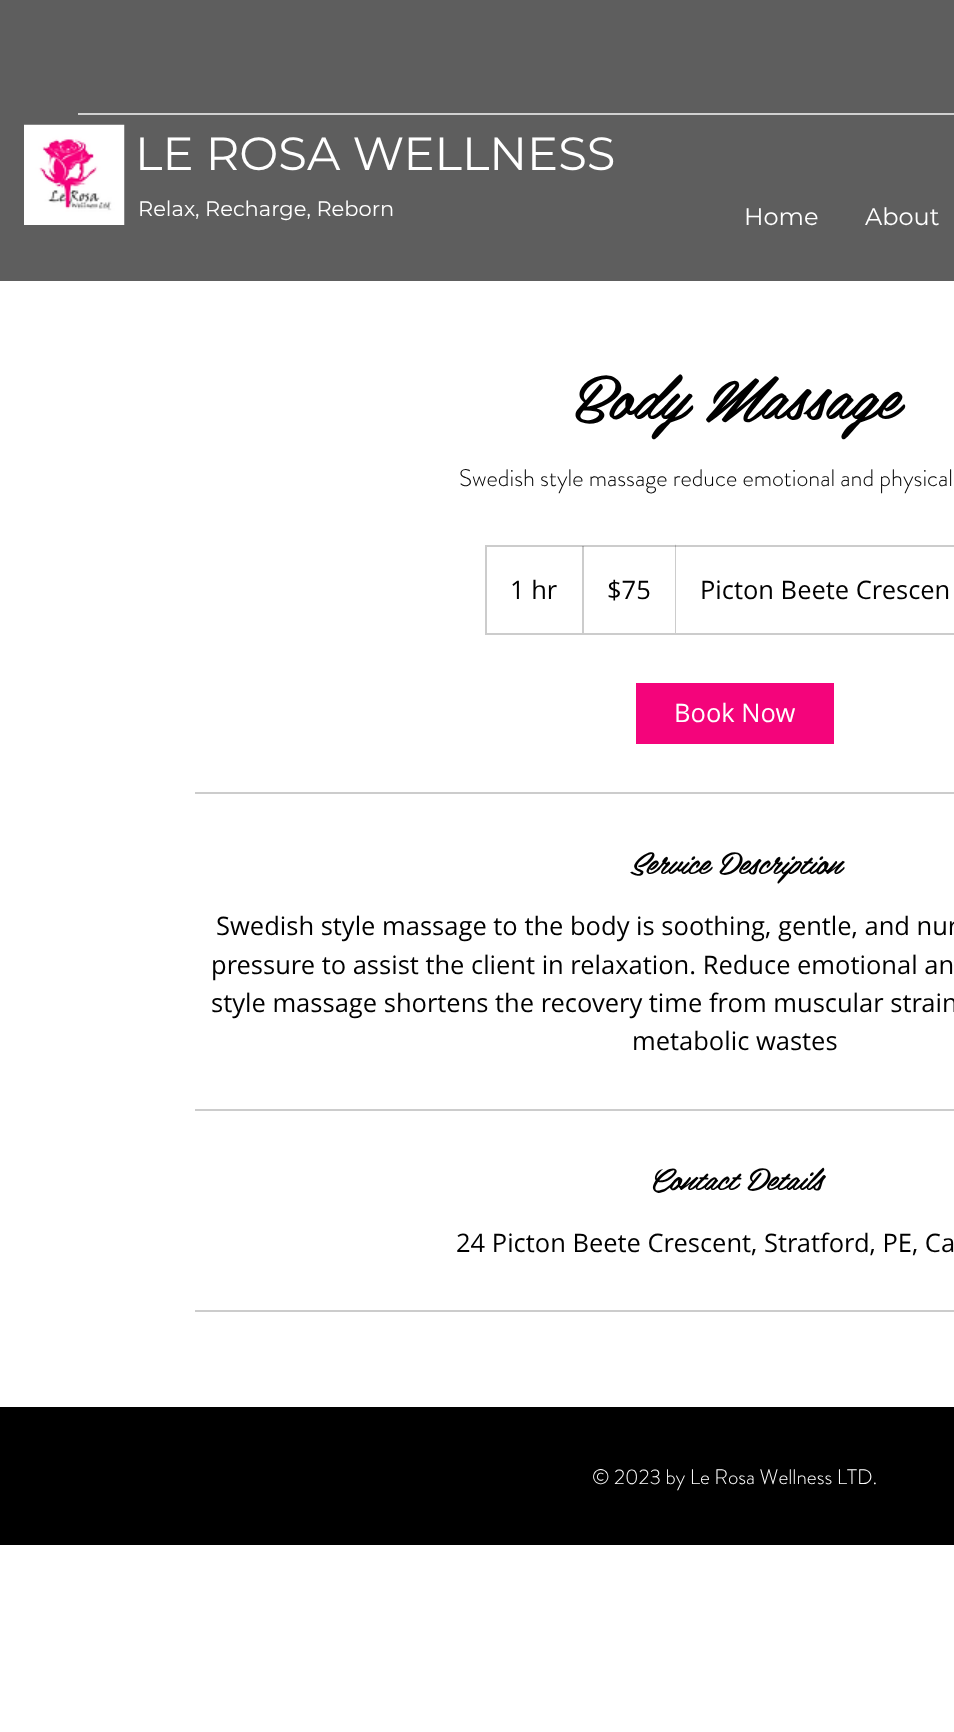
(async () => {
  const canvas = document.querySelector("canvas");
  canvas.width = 954;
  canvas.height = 1732;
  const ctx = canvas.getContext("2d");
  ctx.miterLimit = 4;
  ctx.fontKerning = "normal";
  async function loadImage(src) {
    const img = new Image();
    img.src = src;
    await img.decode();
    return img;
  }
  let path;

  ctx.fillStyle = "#ffffff";
  ctx.fillRect(0, 0, 954, 1732);
  ctx.fillStyle = "#5e5e5e";
  ctx.fillRect(0, 0, 954, 281);
  ctx.fillStyle = "#d1d1d1";
  ctx.fillRect(78, 113, 876, 2);
  ctx.drawImage(await loadImage("img/1.png"), 24, 124, 101, 101);
  ctx.strokeStyle = "#cccccc";
  ctx.lineWidth = 2;
  ctx.strokeRect(486, 546, 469, 88);
  ctx.save();
  ctx.beginPath();
  ctx.rect(486, 546, 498, 87);
  ctx.clip();
  ctx.fillStyle = "rgba(0, 0, 0, 0.2)";
  path = new Path2D("M582 633V544L584 546V633Z");
  ctx.fill(path);
  ctx.restore();
  ctx.fillStyle = "rgba(0, 0, 0, 0.2)";
  path = new Path2D("M675 633V544L676 546V633Z");
  ctx.fill(path);
  for (const [x, y, w, h, color] of [
    [636, 683, 198, 61, "#f4047b"],
    [195, 792, 759, 2, "#cccccc"],
    [195, 1109, 759, 2, "#cccccc"],
    [195, 1310, 759, 2, "#cccccc"],
    [0, 1407, 954, 138, "#000000"],
  ]) {
    ctx.fillStyle = color;
    ctx.fillRect(x, y, w, h);
  }
  ctx.font = "46.5px Montserrat";
  ctx.fillStyle = "#ffffff";
  ctx.fillText("LE ROSA WELLNESS", 135, 170);
  ctx.font = "21px Montserrat";
  ctx.fillText("Relax, Recharge, Reborn", 138, 216);
  ctx.font = "24px Montserrat";
  ctx.fillText("Home", 744, 225);
  ctx.fillText("About", 865, 225);
  ctx.font = "italic 60px 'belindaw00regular'";
  ctx.fillStyle = "#000000";
  ctx.fillText("Body Massage", 573, 419);
  ctx.font = "300 24px 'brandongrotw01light'";
  ctx.fillText("Swedish style massage reduce emotional and physical", 459, 486);
  ctx.font = "25.5px Open Sans";
  for (const [text, x, y] of [
    ["1 hr", 510, 599],
    ["$75", 607, 599],
    ["Picton Beete Crescen", 700, 599],
  ]) {
    ctx.fillText(text, x, y);
  }
  ctx.fillStyle = "#ffffff";
  ctx.fillText("Book Now", 674, 722);
  ctx.font = "italic 30px 'belindaw00regular'";
  ctx.fillStyle = "#000000";
  ctx.fillText("Service Description", 629, 874);
  ctx.font = "25.5px Open Sans";
  for (const [text, x, y] of [
    ["Swedish style massage to the body is soothing, gentle, and nur", 216, 935],
    ["pressure to assist the client in relaxation. Reduce emotional an", 211, 974],
    ["style massage shortens the recovery time from muscular strain", 211, 1012],
    ["metabolic wastes", 632, 1050],
  ]) {
    ctx.fillText(text, x, y);
  }
  ctx.font = "italic 30px 'belindaw00regular'";
  ctx.fillText("Contact Details", 648, 1190);
  ctx.font = "25.5px Open Sans";
  ctx.fillText("24 Picton Beete Crescent, Stratford, PE, Ca", 456, 1252);
  ctx.font = "300 21px 'brandongrotw01light'";
  ctx.fillStyle = "#ffffff";
  ctx.fillText("© 2023 by Le Rosa Wellness LTD.", 592, 1484);
})();
